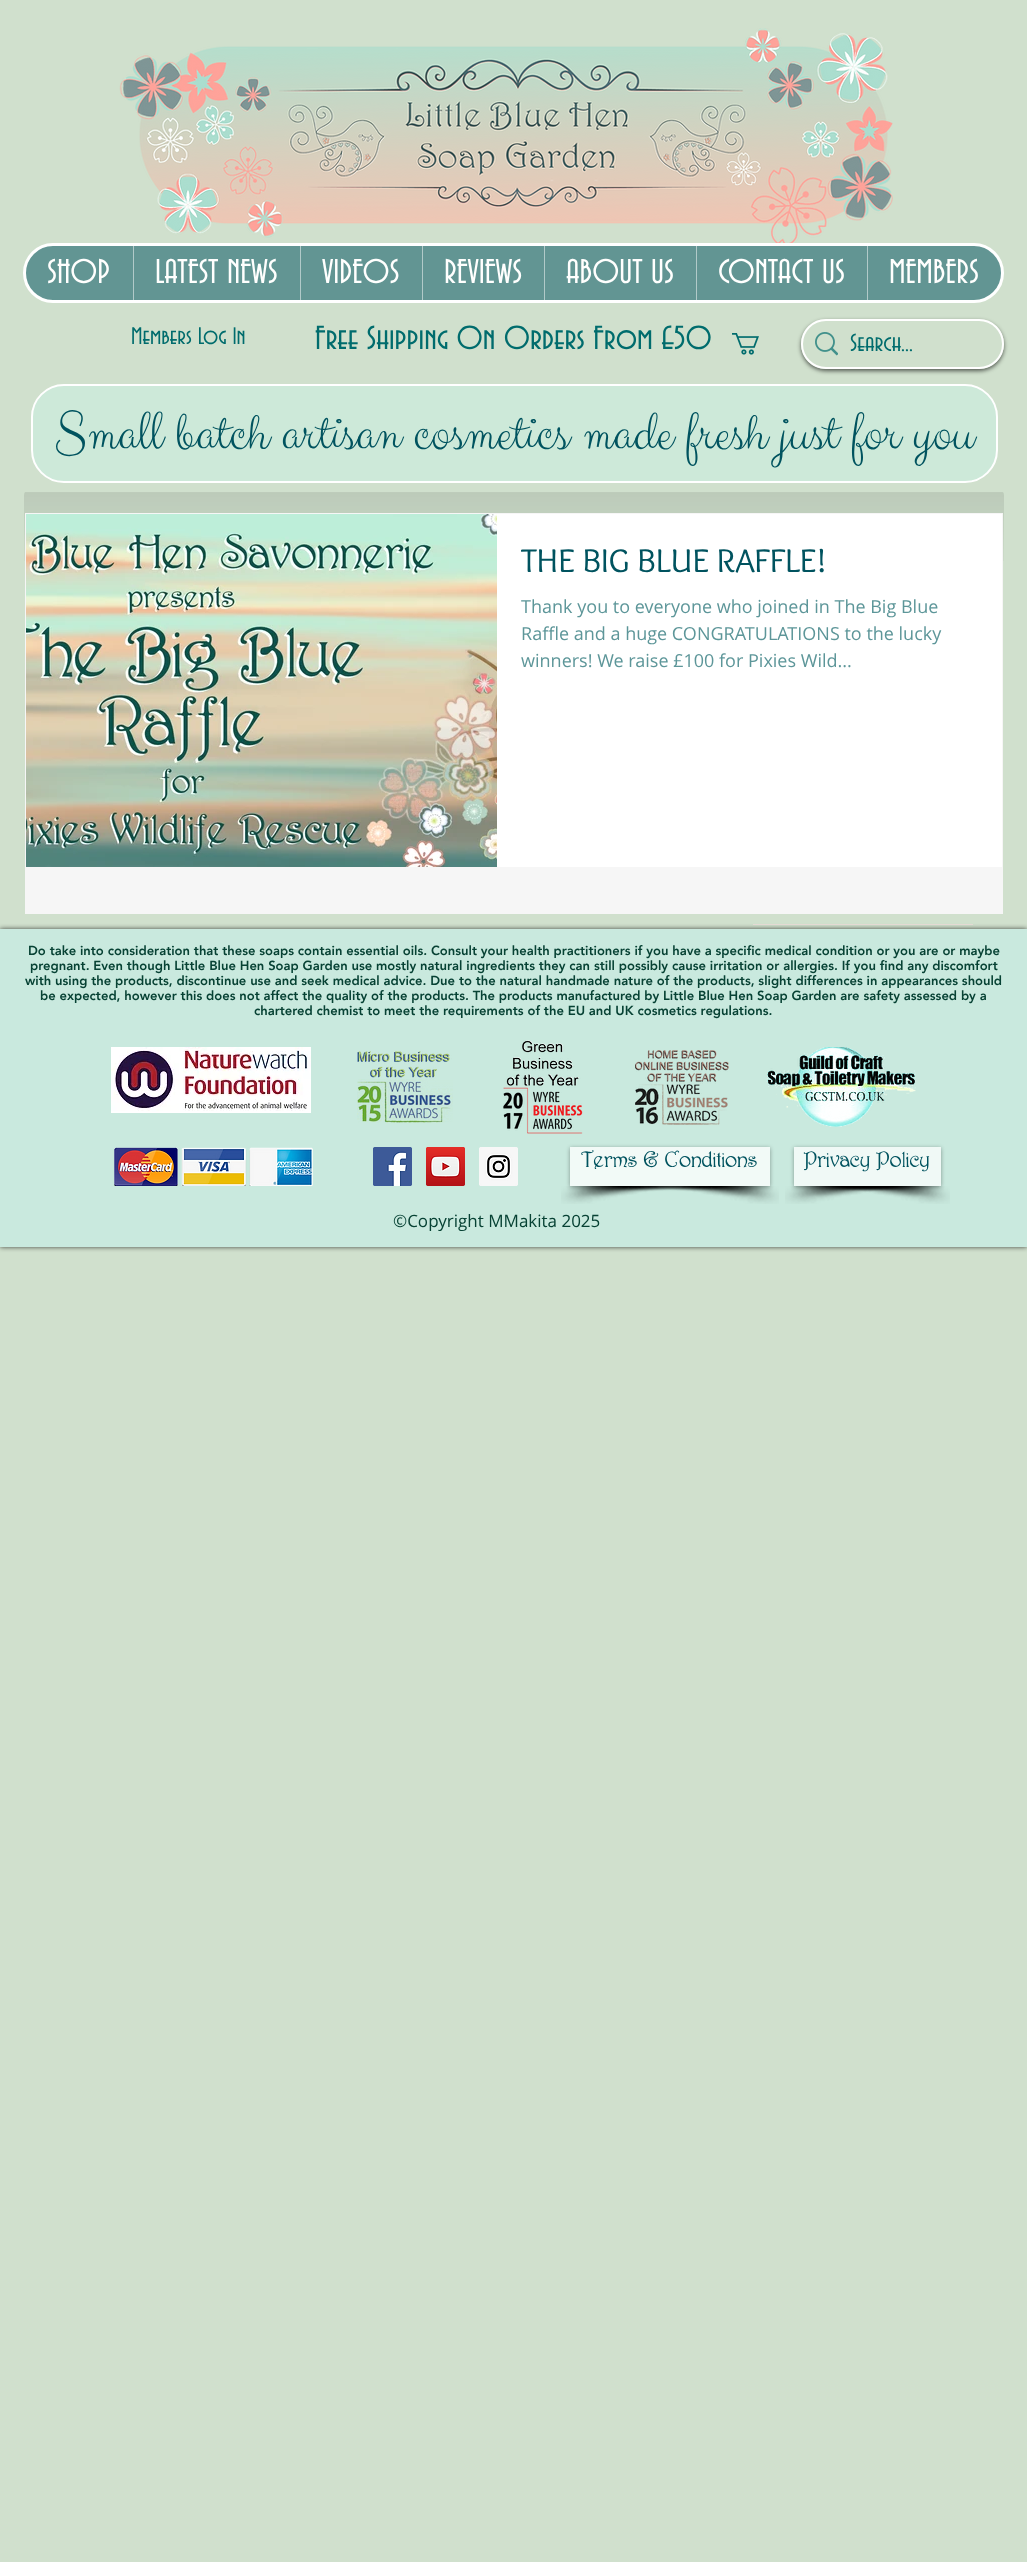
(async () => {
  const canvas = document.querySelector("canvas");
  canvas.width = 1027;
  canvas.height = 2562;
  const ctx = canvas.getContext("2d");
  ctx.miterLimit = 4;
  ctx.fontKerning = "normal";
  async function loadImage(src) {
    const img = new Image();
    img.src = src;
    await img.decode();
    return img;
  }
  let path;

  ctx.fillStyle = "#d0e0cd";
  ctx.fillRect(0, 0, 1027, 2562);
  ctx.drawImage(await loadImage("img/1.png"), 119, 28, 774, 215);
  ctx.fillStyle = "#629593";
  ctx.beginPath();
  ctx.roundRect(24.5, 244.5, 978, 57, 28.5);
  ctx.fill();
  ctx.strokeStyle = "#ffffff";
  ctx.lineWidth = 3;
  ctx.stroke();
  for (const [x, y, w, h, color] of [
    [133, 246, 1, 54, "#b1cac9"],
    [300, 246, 1, 54, "#b1cac9"],
    [422, 246, 1, 54, "#b1cac9"],
    [544, 246, 1, 54, "#b1cac9"],
    [696, 246, 1, 54, "#b1cac9"],
    [867, 246, 1, 54, "#b1cac9"],
  ]) {
    ctx.fillStyle = color;
    ctx.fillRect(x, y, w, h);
  }
  ctx.drawImage(await loadImage("img/2.png"), 732, 333, 27, 22);
  ctx.save();
  path = new Path2D("M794 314H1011V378H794ZM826 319H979C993 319 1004 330 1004 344C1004 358 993 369 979 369H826C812 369 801 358 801 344C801 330 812 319 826 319Z");
  ctx.clip(path, "evenodd");
  ctx.fillStyle = "rgba(0, 0, 0, 0.6)";
  ctx.filter = "blur(2px)";
  ctx.beginPath();
  ctx.roundRect(801, 321, 203, 50, 25);
  ctx.fill();
  ctx.filter = "none";
  ctx.restore();
  ctx.beginPath();
  ctx.roundRect(802, 320, 201, 48, 24);
  ctx.lineWidth = 2;
  ctx.stroke();
  ctx.drawImage(await loadImage("img/3.png"), 815, 332, 23, 24);
  ctx.fillStyle = "#cde9d9";
  ctx.beginPath();
  ctx.roundRect(32, 385, 965, 97, 32);
  ctx.fill();
  ctx.stroke();
  ctx.drawImage(await loadImage("img/4.png"), 24, 492, 980, 69);
  ctx.fillStyle = "#f6f6f6";
  ctx.fillRect(25, 513, 978, 401);
  ctx.drawImage(await loadImage("img/5.png"), 26, 514, 471, 353);
  ctx.fillStyle = "#ffffff";
  ctx.fillRect(497, 514, 505, 353);
  ctx.fillStyle = "#eae0da";
  ctx.fillRect(753, 924, 220, 1);
  ctx.fillStyle = "rgba(0, 0, 0, 0.7)";
  ctx.filter = "blur(2.5px)";
  ctx.beginPath();
  ctx.rect(0, 929, 1027, 318);
  ctx.fill();
  ctx.filter = "none";
  ctx.fillStyle = "#c9e9de";
  ctx.fillRect(0, 929, 1027, 318);
  ctx.drawImage(await loadImage("img/6.png"), 111, 1047, 200, 66);
  ctx.drawImage(await loadImage("img/7.png"), 357, 1051, 96, 72);
  ctx.drawImage(await loadImage("img/8.png"), 503, 1040, 80, 94);
  ctx.drawImage(await loadImage("img/9.png"), 635, 1050, 94, 75);
  ctx.drawImage(await loadImage("img/10.png"), 766, 1047, 150, 80);
  ctx.drawImage(await loadImage("img/11.png"), 114, 1147, 199, 39);
  ctx.drawImage(await loadImage("img/12.png"), 373, 1147, 39, 39);
  ctx.drawImage(await loadImage("img/13.png"), 426, 1147, 39, 39);
  ctx.drawImage(await loadImage("img/14.png"), 479, 1147, 39, 39);
  ctx.drawImage(await loadImage("img/15.png"), 561, 1186, 147, 18);
  ctx.drawImage(await loadImage("img/16.png"), 648, 1186, 131, 18);
  ctx.fillStyle = "rgba(0, 0, 0, 0.35)";
  ctx.filter = "blur(2px)";
  ctx.beginPath();
  ctx.rect(570, 1148, 200, 39);
  ctx.fill();
  ctx.filter = "none";
  ctx.fillStyle = "#f2faf7";
  ctx.fillRect(570, 1147, 200, 39);
  ctx.drawImage(await loadImage("img/17.png"), 785, 1186, 154, 18);
  ctx.drawImage(await loadImage("img/18.png"), 796, 1186, 154, 18);
  ctx.fillStyle = "rgba(0, 0, 0, 0.35)";
  ctx.filter = "blur(2px)";
  ctx.beginPath();
  ctx.rect(794, 1148, 147, 39);
  ctx.fill();
  ctx.filter = "none";
  ctx.fillStyle = "#f0f9f6";
  ctx.fillRect(794, 1147, 147, 39);
  ctx.font = "36px 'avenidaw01'";
  ctx.fillStyle = "#fffffe";
  for (const [text, x, y] of [
    ["SHOP", 47, 283],
    ["LATEST NEWS", 155, 283],
    ["VIDEOS", 322, 283],
    ["REVIEWS", 444, 283],
    ["ABOUT US", 566, 283],
    ["CONTACT US", 718, 283],
    ["MEMBERS", 889, 283],
  ]) {
    ctx.fillText(text, x, y);
  }
  ctx.font = "25px 'avenidaw01'";
  ctx.fillStyle = "#006c6d";
  ctx.fillText("Members Log In", 131, 344);
  ctx.font = "35px 'avenidaw01'";
  ctx.fillText("Free Shipping On Orders From £50", 315, 349);
  ctx.font = "26px 'avenidaw01'";
  ctx.fillText("Search...", 850, 351);
  ctx.font = "57px Clicker Script";
  ctx.fillStyle = "#00535f";
  ctx.fillText("Small batch artisan cosmetics made fresh just for you", 54, 450);
  ctx.font = "34px Overlock";
  ctx.fillText("THE BIG BLUE RAFFLE!", 521, 572);
  ctx.font = "18px Open Sans";
  ctx.fillStyle = "#5d9699";
  for (const [text, x, y] of [
    ["Thank you to everyone who joined in The Big Blue", 521, 613],
    ["Raffle and a huge CONGRATULATIONS to the lucky", 521, 640],
    ["winners! We raise £100 for Pixies Wild...", 521, 667],
  ]) {
    ctx.fillText(text, x, y);
  }
  ctx.font = "900 13px 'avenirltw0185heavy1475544'";
  ctx.fillStyle = "#074234";
  for (const [text, x, y] of [
    ["Do take into consideration that these soaps contain essential oils. Consult your health practitioners if you have a specific medical condition or you are or maybe", 28, 955],
    ["pregnant. Even though Little Blue Hen Soap Garden use mostly natural ingredients they can still possibly cause irritation or allergies. If you find any discomfort", 30, 970],
    ["with using the products, discontinue use and seek medical advice. Due to the natural handmade nature of the products, slight differences in appearances should", 25, 985],
    ["be expected, however this does not affect the quality of the products. The products manufactured by Little Blue Hen Soap Garden are safety assessed by a", 40, 1000],
    ["chartered chemist to meet the requirements of the EU and UK cosmetics regulations.", 254, 1015],
  ]) {
    ctx.fillText(text, x, y);
  }
  ctx.font = "23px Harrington";
  ctx.fillStyle = "#00535f";
  ctx.fillText("Terms & Conditions", 581, 1167);
  ctx.fillText("Privacy Policy", 804, 1167);
  ctx.font = "17px Open Sans";
  ctx.fillStyle = "#074234";
  ctx.fillText("©Copyright MMakita 2025", 393, 1227);
})();
